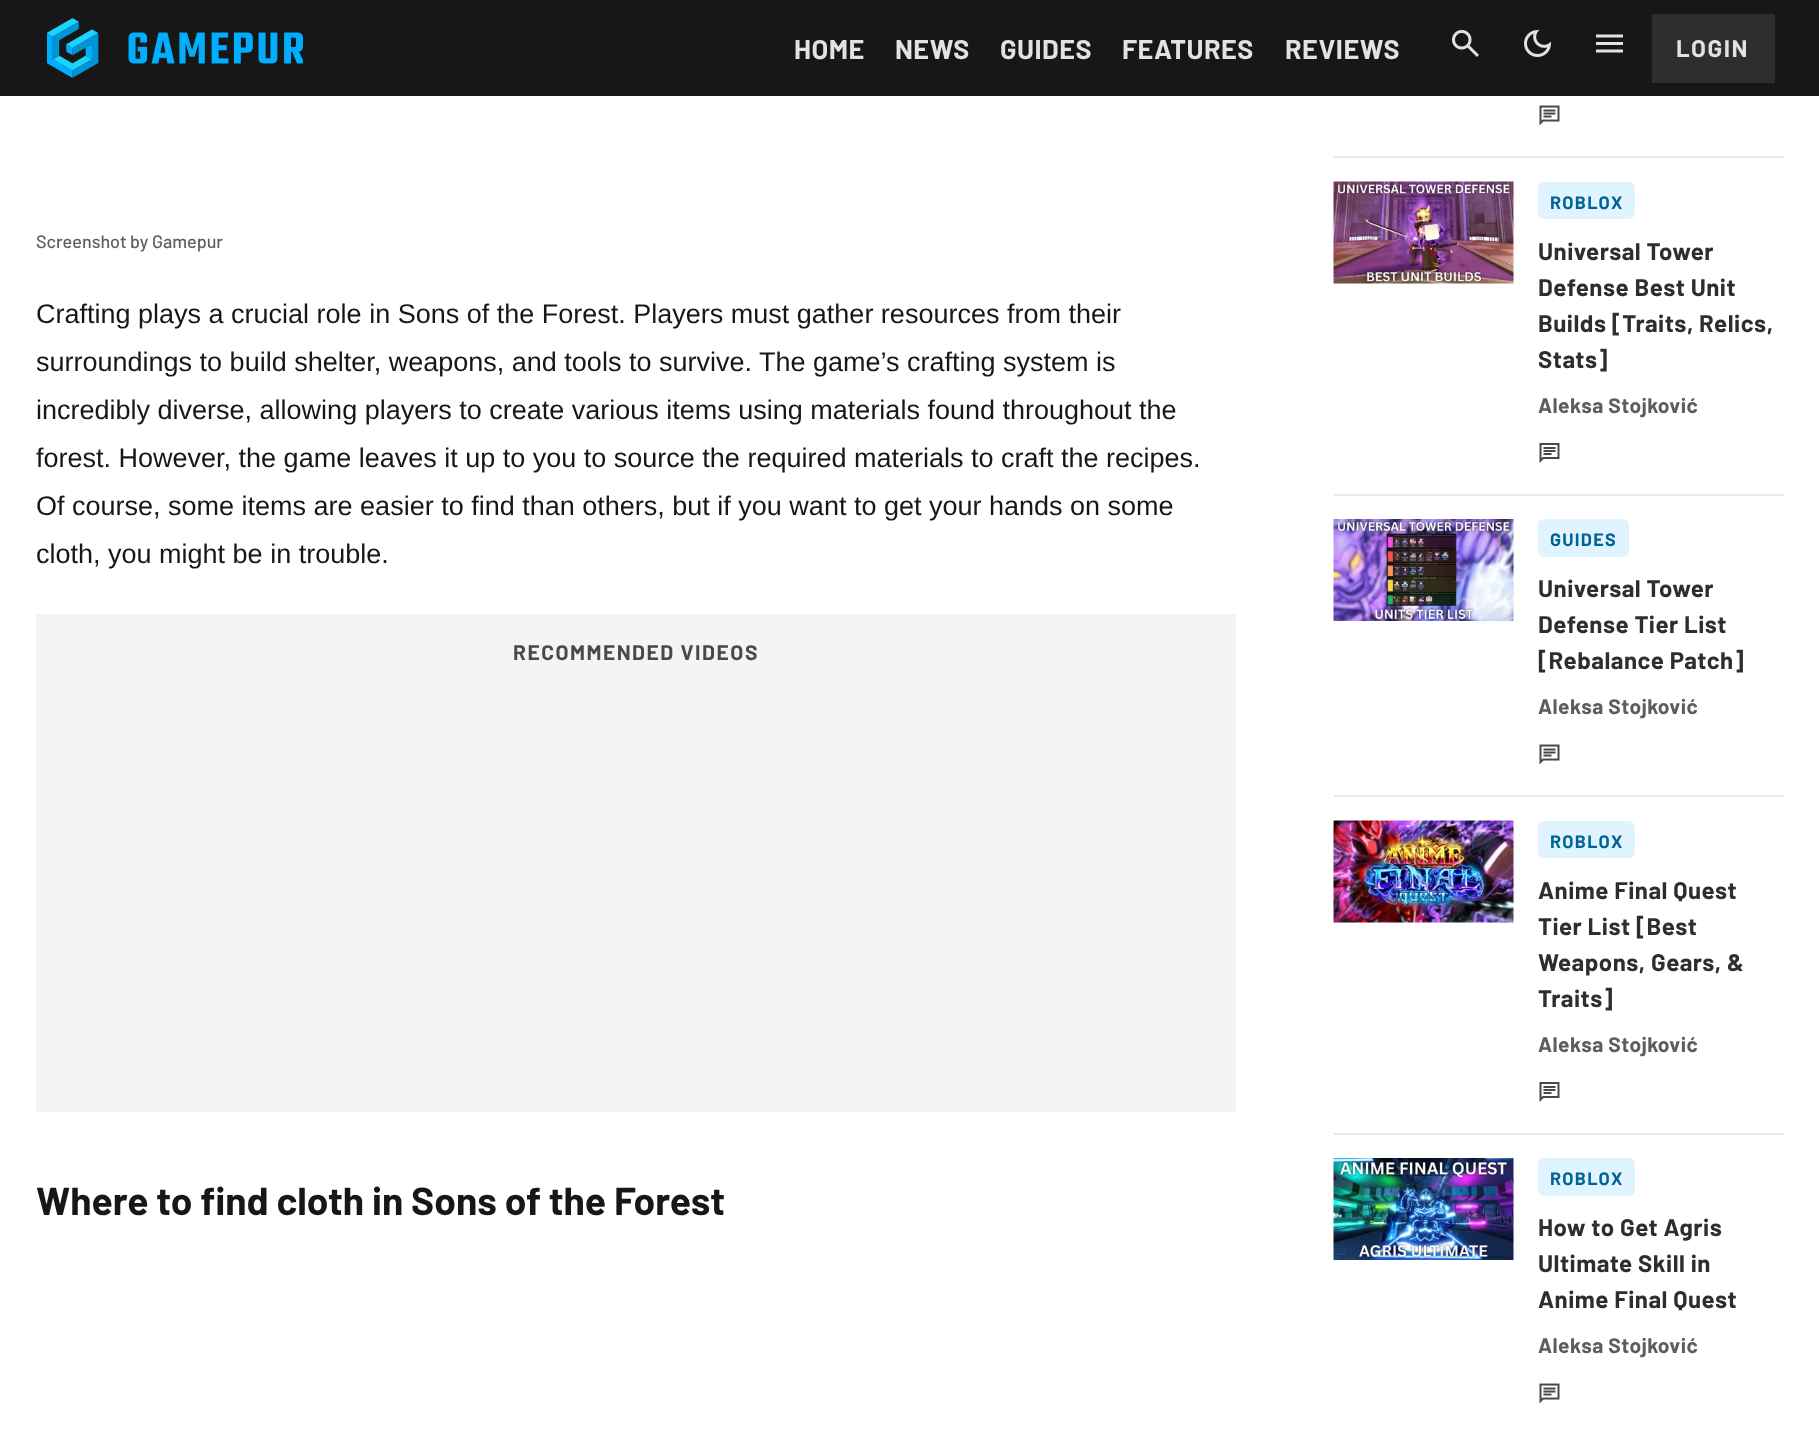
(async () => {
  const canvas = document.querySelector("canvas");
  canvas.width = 1819;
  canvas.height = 1451;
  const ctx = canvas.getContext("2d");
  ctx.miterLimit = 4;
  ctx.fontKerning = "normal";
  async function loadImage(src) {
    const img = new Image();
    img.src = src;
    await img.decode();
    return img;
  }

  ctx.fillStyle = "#ffffff";
  ctx.fillRect(0, 0, 1819, 1451);
  ctx.fillStyle = "#171717";
  ctx.fillRect(0, 0, 1819, 96);
  ctx.drawImage(await loadImage("img/1.png"), 47, 18, 256, 60);
  ctx.drawImage(await loadImage("img/2.png"), 1452, 30, 27, 27);
  ctx.drawImage(await loadImage("img/3.png"), 1524, 30, 27, 27);
  ctx.drawImage(await loadImage("img/4.png"), 1596, 34, 27, 19);
  ctx.fillStyle = "#2e2e2e";
  ctx.fillRect(1652, 14, 123, 69);
  ctx.fillStyle = "#f4f4f4";
  ctx.fillRect(36, 614, 1200, 498);
  ctx.drawImage(await loadImage("img/5.png"), 1539, 105, 21, 21);
  ctx.fillStyle = "#e9e9e9";
  ctx.fillRect(1334, 156, 450, 2);
  ctx.drawImage(await loadImage("img/6.png"), 1333, 181, 181, 103);
  ctx.fillStyle = "#e0f4ff";
  ctx.beginPath();
  ctx.roundRect(1538, 182, 97, 37, 6);
  ctx.fill();
  ctx.drawImage(await loadImage("img/7.png"), 1539, 443, 21, 20);
  ctx.fillStyle = "#e9e9e9";
  ctx.fillRect(1334, 494, 450, 2);
  ctx.drawImage(await loadImage("img/8.png"), 1333, 519, 181, 102);
  ctx.fillStyle = "#e0f4ff";
  ctx.beginPath();
  ctx.roundRect(1538, 519, 91, 38, 6);
  ctx.fill();
  ctx.drawImage(await loadImage("img/5.png"), 1539, 744, 21, 21);
  ctx.fillStyle = "#e9e9e9";
  ctx.fillRect(1334, 795, 450, 2);
  ctx.drawImage(await loadImage("img/9.png"), 1333, 820, 181, 103);
  ctx.fillStyle = "#e0f4ff";
  ctx.beginPath();
  ctx.roundRect(1538, 821, 97, 37, 6);
  ctx.fill();
  ctx.drawImage(await loadImage("img/7.png"), 1539, 1082, 21, 20);
  ctx.fillStyle = "#e9e9e9";
  ctx.fillRect(1334, 1133, 450, 2);
  ctx.drawImage(await loadImage("img/10.png"), 1333, 1158, 181, 102);
  ctx.fillStyle = "#e0f4ff";
  ctx.beginPath();
  ctx.roundRect(1538, 1158, 97, 38, 6);
  ctx.fill();
  ctx.drawImage(await loadImage("img/5.png"), 1539, 1383, 21, 21);
  ctx.letterSpacing = "0.5px";
  ctx.font = "bold 27px Barlow";
  ctx.fillStyle = "#e2e2e2";
  for (const [text, x, y] of [
    ["HOME", 794, 59],
    ["NEWS", 895, 59],
    ["GUIDES", 1000, 59],
    ["FEATURES", 1122, 59],
    ["REVIEWS", 1285, 59],
  ]) {
    ctx.fillText(text, x, y);
  }
  ctx.letterSpacing = "1.5px";
  ctx.font = "bold 24px Barlow";
  ctx.fillText("LOGIN", 1676, 57);
  ctx.letterSpacing = "0px";
  ctx.font = "500 18px Barlow";
  ctx.fillStyle = "#5d5d5d";
  ctx.fillText("Screenshot by Gamepur", 36, 248);
  ctx.font = "27px Liberation Sans";
  ctx.fillStyle = "#171717";
  for (const [text, x, y] of [
    ["Crafting plays a crucial role in Sons of the Forest. Players must gather resources from their", 36, 323],
    ["surroundings to build shelter, weapons, and tools to survive. The game’s crafting system is", 36, 371],
    ["incredibly diverse, allowing players to create various items using materials found throughout the", 36, 419],
    ["forest. However, the game leaves it up to you to source the required materials to craft the recipes.", 36, 467],
    ["Of course, some items are easier to find than others, but if you want to get your hands on some", 36, 515],
    ["cloth, you might be in trouble.", 36, 563],
  ]) {
    ctx.fillText(text, x, y);
  }
  ctx.letterSpacing = "1.5px";
  ctx.font = "bold 21px Barlow";
  ctx.fillStyle = "#494949";
  ctx.fillText("RECOMMENDED VIDEOS", 513, 660);
  ctx.letterSpacing = "0px";
  ctx.font = "bold 39px Barlow";
  ctx.fillStyle = "#171717";
  ctx.fillText("Where to find cloth in Sons of the Forest", 36, 1215);
  ctx.letterSpacing = "1.25px";
  ctx.font = "bold 18px Barlow";
  ctx.fillStyle = "#006295";
  ctx.fillText("ROBLOX", 1550, 209);
  ctx.letterSpacing = "0.5px";
  ctx.font = "bold 24px Barlow";
  ctx.fillStyle = "#2e2e2e";
  for (const [text, x, y] of [
    ["Universal Tower", 1538, 260],
    ["Defense Best Unit", 1538, 296],
    ["Builds [Traits, Relics,", 1538, 332],
    ["Stats]", 1538, 368],
  ]) {
    ctx.fillText(text, x, y);
  }
  ctx.letterSpacing = "0.4px";
  ctx.font = "bold 21px Barlow";
  ctx.fillStyle = "#5d5d5d";
  ctx.fillText("Aleksa Stojković", 1538, 413);
  ctx.letterSpacing = "1.25px";
  ctx.font = "bold 18px Barlow";
  ctx.fillStyle = "#006295";
  ctx.fillText("GUIDES", 1550, 546);
  ctx.letterSpacing = "0.5px";
  ctx.font = "bold 24px Barlow";
  ctx.fillStyle = "#2e2e2e";
  for (const [text, x, y] of [
    ["Universal Tower", 1538, 597],
    ["Defense Tier List", 1538, 633],
    ["[Rebalance Patch]", 1538, 669],
  ]) {
    ctx.fillText(text, x, y);
  }
  ctx.letterSpacing = "0.4px";
  ctx.font = "bold 21px Barlow";
  ctx.fillStyle = "#5d5d5d";
  ctx.fillText("Aleksa Stojković", 1538, 714);
  ctx.letterSpacing = "1.25px";
  ctx.font = "bold 18px Barlow";
  ctx.fillStyle = "#006295";
  ctx.fillText("ROBLOX", 1550, 848);
  ctx.letterSpacing = "0.5px";
  ctx.font = "bold 24px Barlow";
  ctx.fillStyle = "#2e2e2e";
  for (const [text, x, y] of [
    ["Anime Final Quest", 1538, 899],
    ["Tier List [Best", 1538, 935],
    ["Weapons, Gears, &", 1538, 971],
    ["Traits]", 1538, 1007],
  ]) {
    ctx.fillText(text, x, y);
  }
  ctx.letterSpacing = "0.4px";
  ctx.font = "bold 21px Barlow";
  ctx.fillStyle = "#5d5d5d";
  ctx.fillText("Aleksa Stojković", 1538, 1052);
  ctx.letterSpacing = "1.25px";
  ctx.font = "bold 18px Barlow";
  ctx.fillStyle = "#006295";
  ctx.fillText("ROBLOX", 1550, 1185);
  ctx.letterSpacing = "0.5px";
  ctx.font = "bold 24px Barlow";
  ctx.fillStyle = "#2e2e2e";
  for (const [text, x, y] of [
    ["How to Get Agris", 1538, 1236],
    ["Ultimate Skill in", 1538, 1272],
    ["Anime Final Quest", 1538, 1308],
  ]) {
    ctx.fillText(text, x, y);
  }
  ctx.letterSpacing = "0.4px";
  ctx.font = "bold 21px Barlow";
  ctx.fillStyle = "#5d5d5d";
  ctx.fillText("Aleksa Stojković", 1538, 1353);
})();
